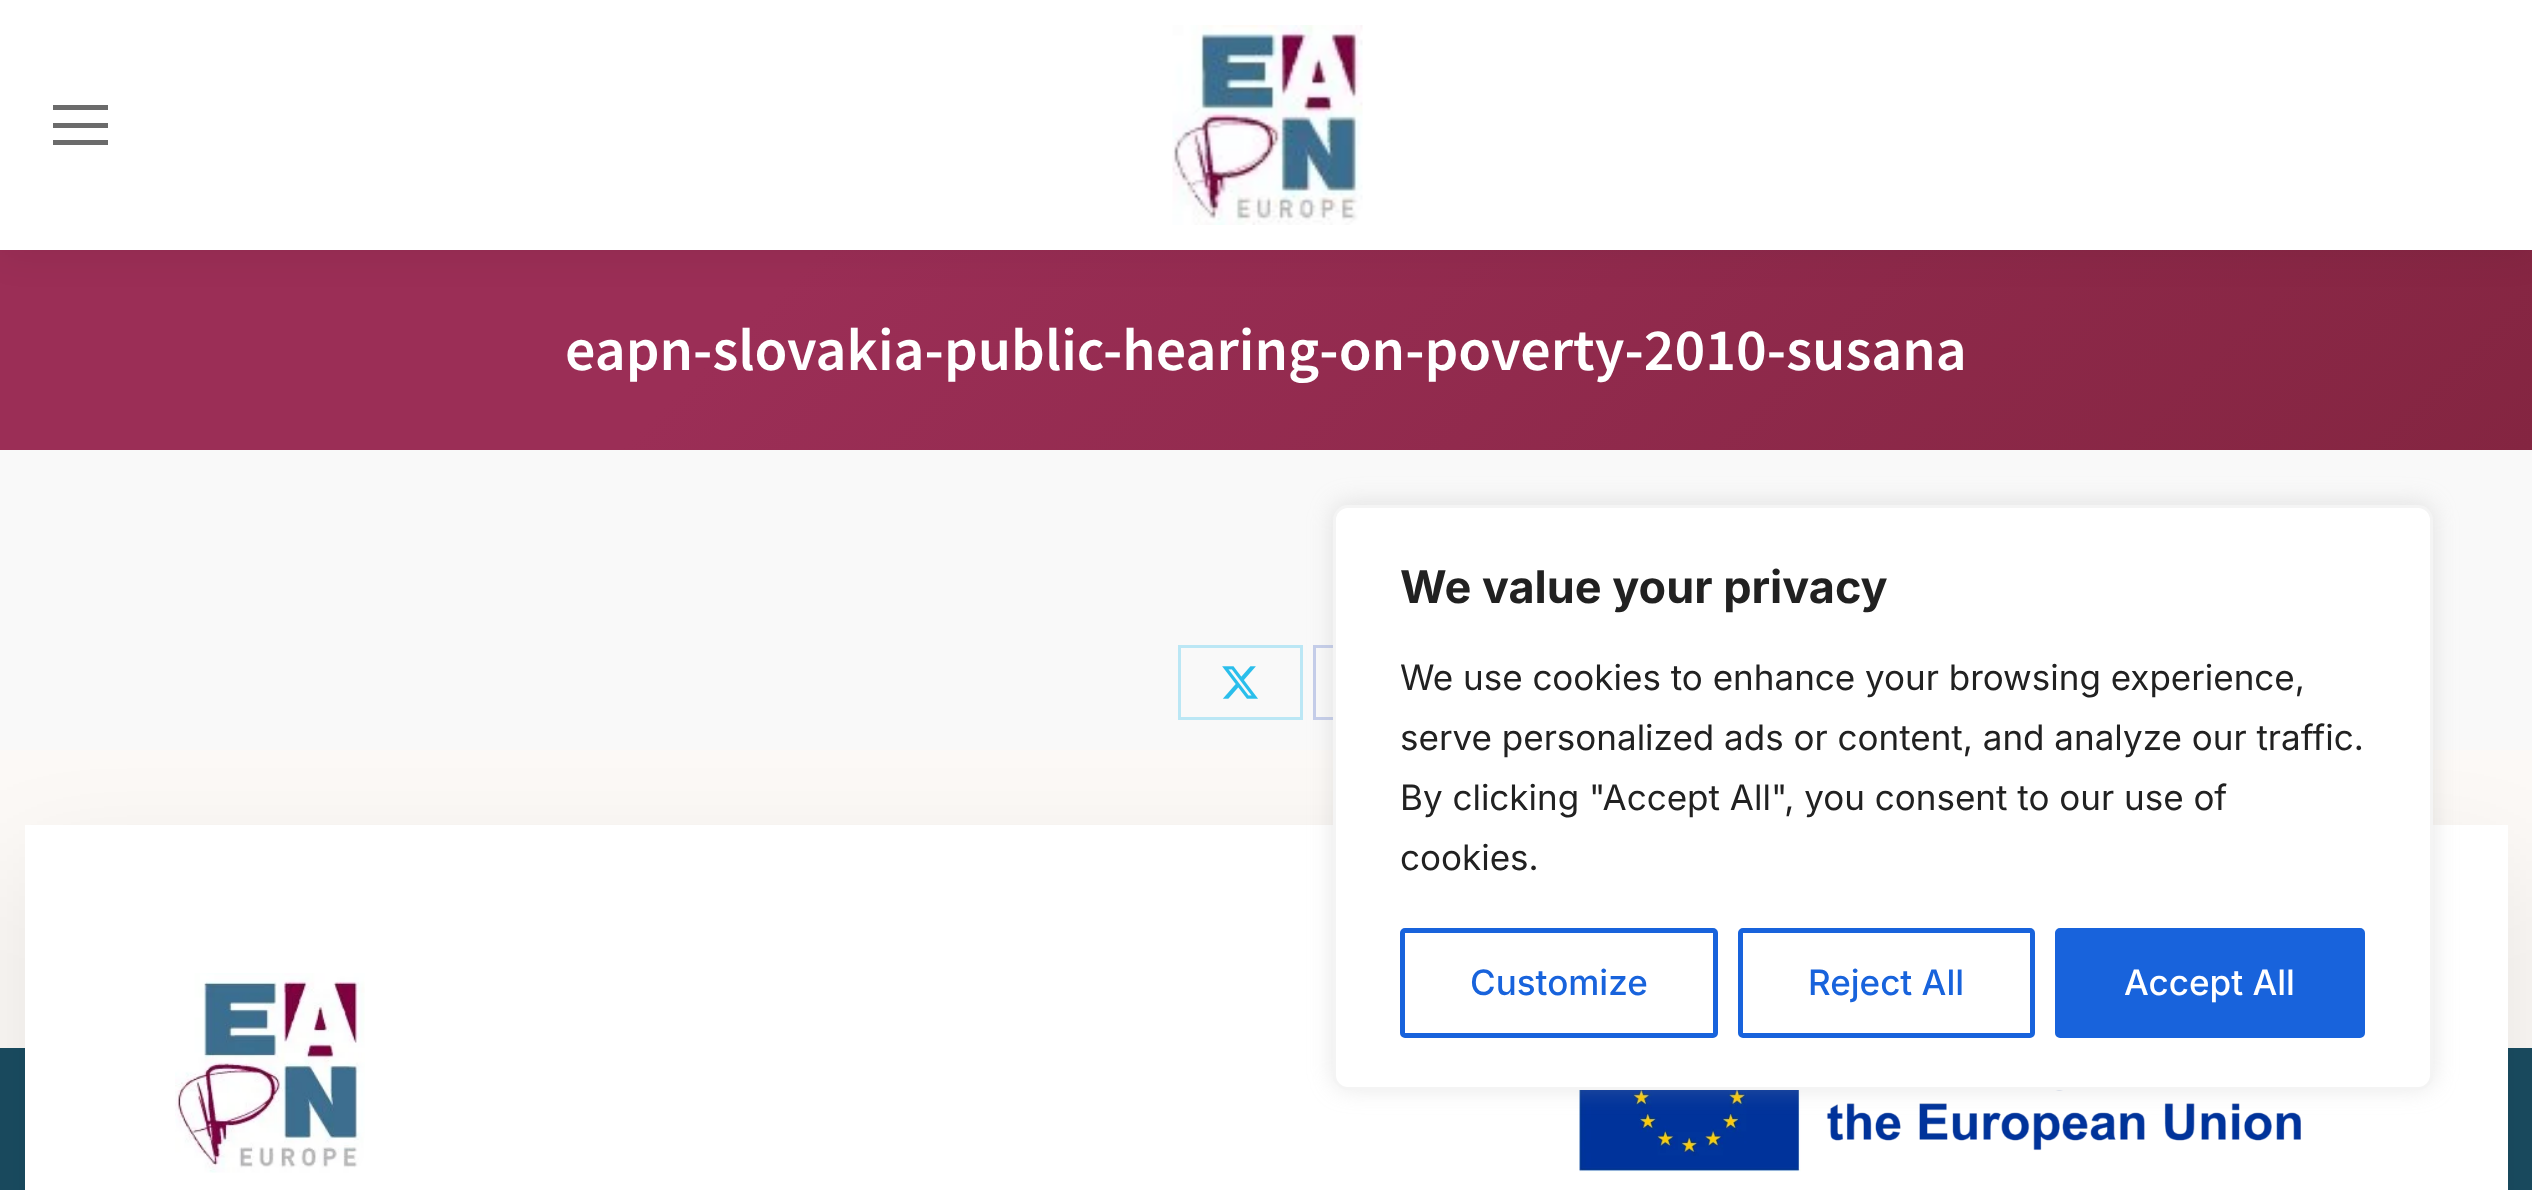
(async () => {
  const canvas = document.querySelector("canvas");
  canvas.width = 2532;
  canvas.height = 1190;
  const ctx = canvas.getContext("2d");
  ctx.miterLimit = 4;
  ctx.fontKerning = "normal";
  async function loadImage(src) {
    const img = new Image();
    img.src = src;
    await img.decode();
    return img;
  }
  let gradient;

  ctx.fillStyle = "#f9f9f9";
  ctx.fillRect(0, 0, 2532, 1190);
  gradient = ctx.createLinearGradient(583, -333, 1949, 1033);
  gradient.addColorStop(0.3, "#9b2e56");
  gradient.addColorStop(1, "#842541");
  ctx.fillStyle = gradient;
  ctx.fillRect(0, 250, 2532, 200);
  ctx.fillStyle = "rgba(0, 0, 0, 0.07)";
  ctx.filter = "blur(19px)";
  ctx.beginPath();
  ctx.rect(-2, -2, 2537, 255);
  ctx.fill();
  ctx.filter = "none";
  for (const [x, y, w, h, color] of [
    [0, 0, 2532, 250, "#ffffff"],
    [53, 105, 55, 5, "#6b6b6b"],
    [53, 123, 55, 5, "#6b6b6b"],
    [53, 140, 55, 5, "#6b6b6b"],
  ]) {
    ctx.fillStyle = color;
    ctx.fillRect(x, y, w, h);
  }
  ctx.drawImage(await loadImage("img/1.png"), 1172, 25, 191, 200);
  ctx.strokeStyle = "#bbe7f5";
  ctx.lineWidth = 3;
  ctx.strokeRect(1179.5, 646.5, 122, 72);
  ctx.drawImage(await loadImage("img/2.png"), 1222, 666, 36, 33);
  ctx.strokeStyle = "#c5ceea";
  ctx.strokeRect(1314.5, 646.5, 122, 72);
  ctx.fillStyle = "#1a4c61";
  ctx.fillRect(0, 1048, 2532, 142);
  ctx.fillStyle = "#fcf9f6";
  ctx.fillRect(0, 750, 2532, 298);
  ctx.fillStyle = "rgba(0, 0, 0, 0.09)";
  ctx.filter = "blur(55px)";
  ctx.beginPath();
  ctx.rect(25, 870, 2483, 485);
  ctx.fill();
  ctx.filter = "none";
  ctx.fillStyle = "#ffffff";
  ctx.fillRect(25, 825, 2483, 365);
  ctx.drawImage(await loadImage("img/3.png"), 175, 973, 190, 200);
  ctx.drawImage(await loadImage("img/4.png"), 1579, 1090, 722, 82);
  ctx.fillStyle = "rgba(172, 171, 171, 0.3)";
  ctx.filter = "blur(12.5px)";
  ctx.beginPath();
  ctx.roundRect(1333, 503, 1100, 585, 15);
  ctx.fill();
  ctx.filter = "none";
  ctx.fillStyle = "#ffffff";
  ctx.beginPath();
  ctx.roundRect(1334.5, 506.5, 1097, 582, 13.5);
  ctx.fill();
  ctx.strokeStyle = "#f4f4f4";
  ctx.stroke();
  ctx.beginPath();
  ctx.roundRect(1402.5, 930.5, 313, 105, 2.5);
  ctx.strokeStyle = "#1863dc";
  ctx.lineWidth = 5;
  ctx.stroke();
  ctx.beginPath();
  ctx.roundRect(1740.5, 930.5, 292, 105, 2.5);
  ctx.stroke();
  ctx.fillStyle = "#1863dc";
  ctx.beginPath();
  ctx.roundRect(2057.5, 930.5, 305, 105, 2.5);
  ctx.fill();
  ctx.stroke();
  ctx.font = "600 60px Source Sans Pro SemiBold";
  ctx.fillStyle = "#ffffff";
  ctx.fillText("eapn-slovakia-public-hearing-on-poverty-2010-susana", 565, 370);
  ctx.font = "bold 45px Inter";
  ctx.fillStyle = "#212121";
  ctx.fillText("We value your privacy", 1400, 603);
  ctx.font = "35px Inter";
  for (const [text, x, y] of [
    ["We use cookies to enhance your browsing experience,", 1400, 690],
    ["serve personalized ads or content, and analyze our traffic.", 1400, 750],
    ["By clicking \"Accept All\", you consent to our use of", 1400, 810],
    ["cookies.", 1400, 870],
  ]) {
    ctx.fillText(text, x, y);
  }
  ctx.font = "500 35px Inter";
  ctx.fillStyle = "#1863dc";
  ctx.fillText("Customize", 1470, 995);
  ctx.fillText("Reject All", 1808, 995);
  ctx.fillStyle = "#ffffff";
  ctx.fillText("Accept All", 2124, 995);
})();
